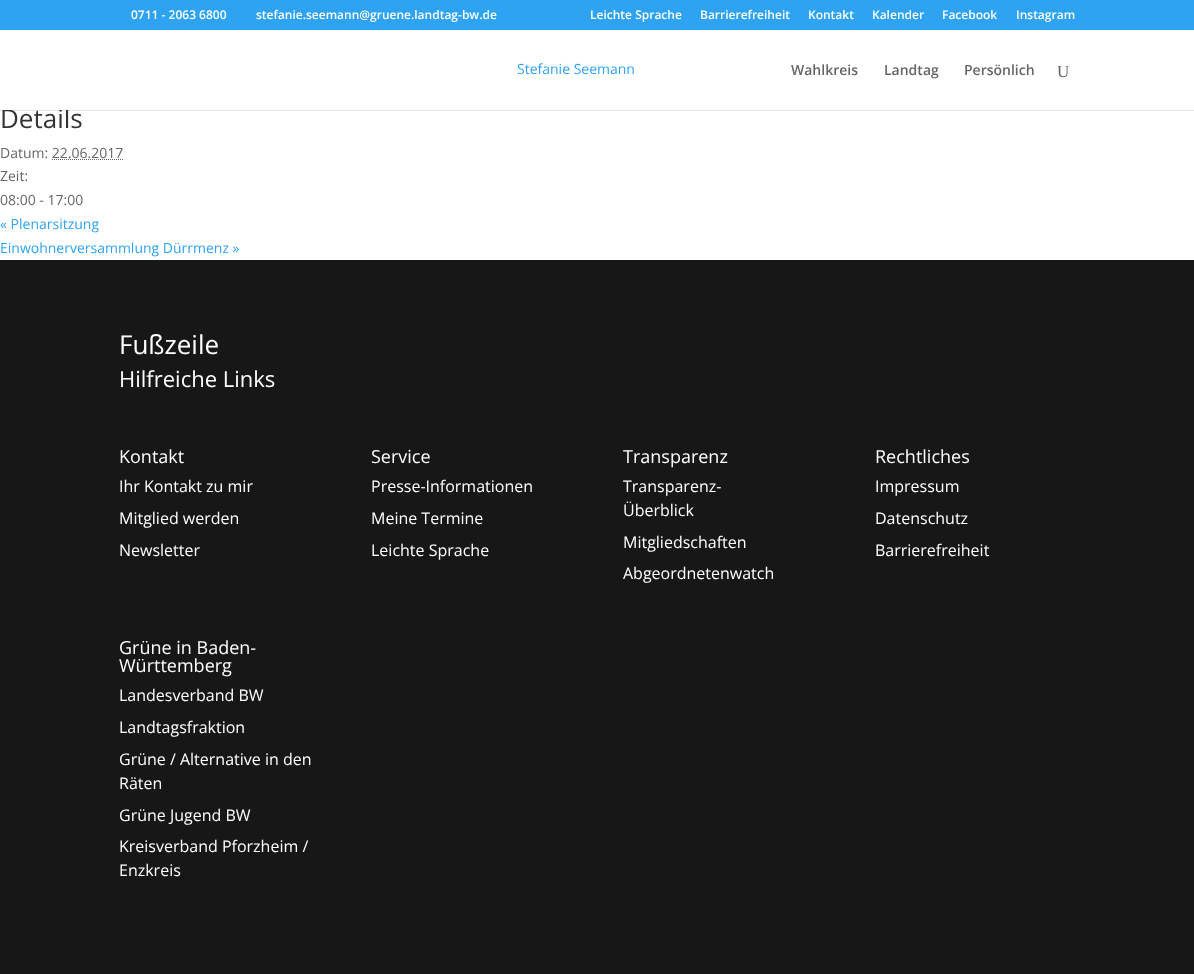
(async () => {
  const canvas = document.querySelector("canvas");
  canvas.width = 1194;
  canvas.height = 974;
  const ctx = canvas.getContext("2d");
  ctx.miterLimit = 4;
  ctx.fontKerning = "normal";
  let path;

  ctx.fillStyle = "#ffffff";
  ctx.fillRect(0, 0, 1194, 974);
  ctx.fillStyle = "#2ea3f2";
  ctx.fillRect(0, 0, 1194, 30);
  ctx.fillStyle = "rgba(0, 0, 0, 0.1)";
  ctx.fillRect(0, 110, 1194, 1);
  path = new Path2D("M52 159.5H123");
  ctx.strokeStyle = "#666666";
  ctx.setLineDash([1, 1]);
  ctx.stroke(path);
  ctx.fillStyle = "#171717";
  ctx.fillRect(0, 260, 1194, 714);
  ctx.font = "600 12px Open Sans";
  ctx.fillStyle = "#ffffff";
  for (const [text, x, y] of [
    ["0711 - 2063 6800", 131, 19],
    ["stefanie.seemann@gruene.landtag-bw.de", 256, 19],
    ["Leichte Sprache", 590, 19],
    ["Barrierefreiheit", 700, 19],
    ["Kontakt", 808, 19],
    ["Kalender", 872, 19],
    ["Facebook", 942, 19],
    ["Instagram", 1016, 19],
  ]) {
    ctx.fillText(text, x, y);
  }
  ctx.font = "14px Open Sans";
  ctx.fillStyle = "#2ea3f2";
  ctx.fillText("Stefanie Seemann", 517, 74);
  ctx.font = "600 14px Open Sans";
  ctx.fillStyle = "#666666";
  for (const [text, x, y] of [
    ["Wahlkreis", 791, 75],
    ["Landtag", 884, 75],
    ["Persönlich", 964, 75],
  ]) {
    ctx.fillText(text, x, y);
  }
  ctx.font = "17px Liberation Serif";
  ctx.fillText("U", 1057, 77);
  ctx.font = "26px Open Sans";
  ctx.fillStyle = "#333333";
  ctx.fillText("Details", 0, 128);
  ctx.fillStyle = "#ffffff";
  ctx.fillRect(2, 108, 67, 2);
  ctx.font = "14px Open Sans";
  ctx.fillStyle = "#666666";
  for (const [text, x, y] of [
    ["Datum: 22.06.2017", 0, 158],
    ["Zeit:", 0, 181],
    ["08:00 - 17:00", 0, 205],
  ]) {
    ctx.fillText(text, x, y);
  }
  ctx.fillStyle = "#2ea3f2";
  ctx.fillText("« Plenarsitzung", 0, 229);
  ctx.fillText("Einwohnerversammlung Dürrmenz »", 0, 253);
  ctx.font = "26px Open Sans";
  ctx.fillStyle = "#ffffff";
  ctx.fillText("Fußzeile", 119, 354);
  ctx.font = "22px Open Sans";
  ctx.fillText("Hilfreiche Links", 119, 387);
  ctx.font = "18px Open Sans";
  ctx.fillText("Kontakt", 119, 463);
  ctx.font = "16px Open Sans";
  for (const [text, x, y] of [
    ["Ihr Kontakt zu mir", 119, 492],
    ["Mitglied werden", 119, 524],
    ["Newsletter", 119, 556],
  ]) {
    ctx.fillText(text, x, y);
  }
  ctx.font = "18px Open Sans";
  ctx.fillText("Service", 371, 463);
  ctx.font = "16px Open Sans";
  for (const [text, x, y] of [
    ["Presse-Informationen", 371, 492],
    ["Meine Termine", 371, 524],
    ["Leichte Sprache", 371, 556],
  ]) {
    ctx.fillText(text, x, y);
  }
  ctx.font = "18px Open Sans";
  ctx.fillText("Transparenz", 623, 463);
  ctx.font = "16px Open Sans";
  for (const [text, x, y] of [
    ["Transparenz-", 623, 492],
    ["Überblick", 623, 516],
    ["Mitgliedschaften", 623, 548],
    ["Abgeordnetenwatch", 623, 579],
  ]) {
    ctx.fillText(text, x, y);
  }
  ctx.font = "18px Open Sans";
  ctx.fillText("Rechtliches", 875, 463);
  ctx.font = "16px Open Sans";
  for (const [text, x, y] of [
    ["Impressum", 875, 492],
    ["Datenschutz", 875, 524],
    ["Barrierefreiheit", 875, 556],
  ]) {
    ctx.fillText(text, x, y);
  }
  ctx.font = "18px Open Sans";
  ctx.fillText("Grüne in Baden-", 119, 654);
  ctx.fillText("Württemberg", 119, 672);
  ctx.font = "16px Open Sans";
  for (const [text, x, y] of [
    ["Landesverband BW", 119, 701],
    ["Landtagsfraktion", 119, 733],
    ["Grüne / Alternative in den", 119, 765],
    ["Räten", 119, 789],
    ["Grüne Jugend BW", 119, 821],
    ["Kreisverband Pforzheim /", 119, 852],
    ["Enzkreis", 119, 876],
  ]) {
    ctx.fillText(text, x, y);
  }
})();
